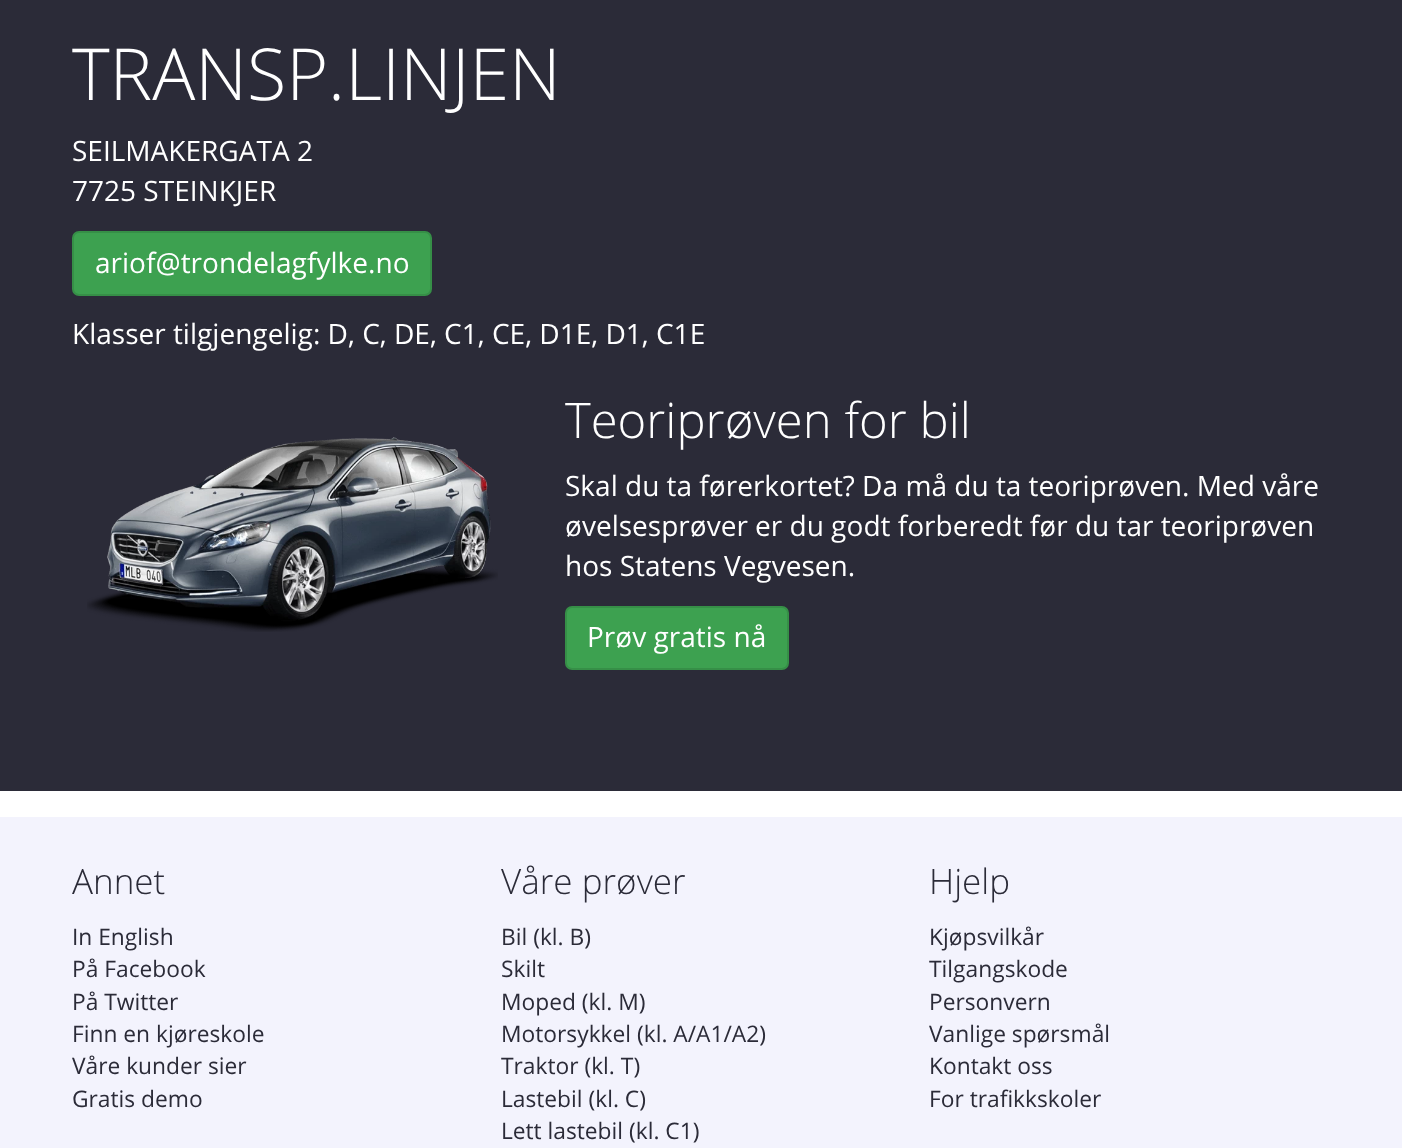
(async () => {
  const canvas = document.querySelector("canvas");
  canvas.width = 1402;
  canvas.height = 1148;
  const ctx = canvas.getContext("2d");
  ctx.miterLimit = 4;
  ctx.fontKerning = "normal";
  async function loadImage(src) {
    const img = new Image();
    img.src = src;
    await img.decode();
    return img;
  }

  ctx.fillStyle = "#ffffff";
  ctx.fillRect(0, 0, 1402, 1148);
  ctx.fillStyle = "#2b2b38";
  ctx.fillRect(0, 0, 1402, 791);
  ctx.fillStyle = "#3da150";
  ctx.beginPath();
  ctx.roundRect(73, 232, 358, 63, 6);
  ctx.fill();
  ctx.strokeStyle = "#368f47";
  ctx.lineWidth = 2;
  ctx.stroke();
  ctx.drawImage(await loadImage("img/1.png"), 87, 437, 411, 195);
  ctx.beginPath();
  ctx.roundRect(566, 607, 222, 62, 6);
  ctx.fill();
  ctx.stroke();
  ctx.fillStyle = "#f3f3fd";
  ctx.fillRect(0, 817, 1402, 331);
  ctx.font = "300 71.75px Open Sans";
  ctx.fillStyle = "#ffffff";
  ctx.fillText("TRANSP.LINJEN", 72, 100);
  ctx.font = "28px Open Sans";
  for (const [text, x, y] of [
    ["SEILMAKERGATA 2", 72, 161],
    ["7725 STEINKJER", 72, 201],
    ["ariof@trondelagfylke.no", 95, 273],
    ["Klasser tilgjengelig: D, C, DE, C1, CE, D1E, D1, C1E", 72, 344],
  ]) {
    ctx.fillText(text, x, y);
  }
  ctx.font = "300 49px Open Sans";
  ctx.fillText("Teoriprøven for bil", 565, 438);
  ctx.font = "28px Open Sans";
  for (const [text, x, y] of [
    ["Skal du ta førerkortet? Da må du ta teoriprøven. Med våre", 565, 496],
    ["øvelsesprøver er du godt forberedt før du tar teoriprøven", 565, 536],
    ["hos Statens Vegvesen.", 565, 576],
    ["Prøv gratis nå", 587, 647],
  ]) {
    ctx.fillText(text, x, y);
  }
  ctx.font = "300 35px Open Sans";
  ctx.fillStyle = "#2b2b38";
  ctx.fillText("Annet", 72, 894);
  ctx.font = "22.75px Open Sans";
  for (const [text, x, y] of [
    ["In English", 72, 945],
    ["På Facebook", 72, 977],
    ["På Twitter", 72, 1010],
    ["Finn en kjøreskole", 72, 1042],
    ["Våre kunder sier", 72, 1074],
    ["Gratis demo", 72, 1107],
  ]) {
    ctx.fillText(text, x, y);
  }
  ctx.font = "300 35px Open Sans";
  ctx.fillText("Våre prøver", 501, 894);
  ctx.font = "22.75px Open Sans";
  for (const [text, x, y] of [
    ["Bil (kl. B)", 501, 945],
    ["Skilt", 501, 977],
    ["Moped (kl. M)", 501, 1010],
    ["Motorsykkel (kl. A/A1/A2)", 501, 1042],
    ["Traktor (kl. T)", 501, 1074],
    ["Lastebil (kl. C)", 501, 1107],
    ["Lett lastebil (kl. C1)", 501, 1139],
  ]) {
    ctx.fillText(text, x, y);
  }
  ctx.font = "300 35px Open Sans";
  ctx.fillText("Hjelp", 929, 894);
  ctx.font = "22.75px Open Sans";
  for (const [text, x, y] of [
    ["Kjøpsvilkår", 929, 945],
    ["Tilgangskode", 929, 977],
    ["Personvern", 929, 1010],
    ["Vanlige spørsmål", 929, 1042],
    ["Kontakt oss", 929, 1074],
    ["For trafikkskoler", 929, 1107],
  ]) {
    ctx.fillText(text, x, y);
  }
})();
